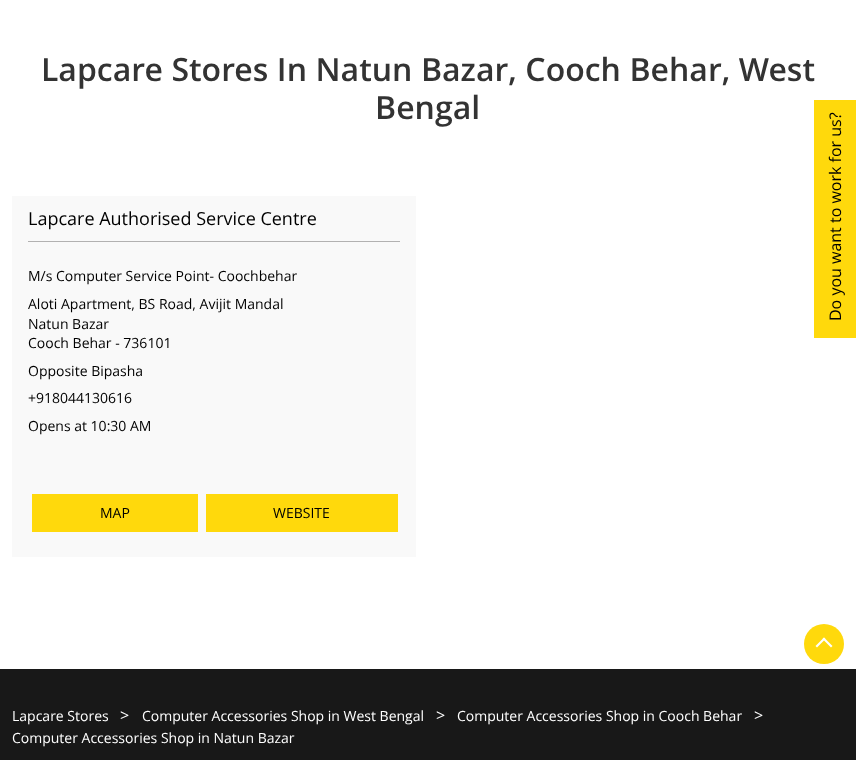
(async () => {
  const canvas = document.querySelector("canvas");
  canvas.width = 856;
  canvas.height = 760;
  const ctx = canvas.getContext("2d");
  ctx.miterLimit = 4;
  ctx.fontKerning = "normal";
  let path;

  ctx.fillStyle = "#ffffff";
  ctx.fillRect(0, 0, 856, 760);
  for (const [x, y, w, h, color] of [
    [12, 196, 404, 361, "#f9f9f9"],
    [28, 241, 372, 1, "#b2b1b1"],
    [32, 494, 166, 38, "#ffd90c"],
    [206, 494, 192, 38, "#ffd90c"],
    [814, 100, 42, 238, "#ffd90c"],
  ]) {
    ctx.fillStyle = color;
    ctx.fillRect(x, y, w, h);
  }
  ctx.beginPath();
  ctx.arc(824, 644, 20, 0, Math.PI * 2);
  ctx.fill();
  ctx.fillStyle = "#ffffff";
  path = new Path2D("M817 647.5L815.5 646L824 637.5L825.5 639Z");
  ctx.fill(path);
  path = new Path2D("M831 647.5L822.5 639L824 637.5L832.5 646Z");
  ctx.fill(path);
  ctx.fillStyle = "#181818";
  ctx.fillRect(0, 669, 856, 91);
  ctx.wordSpacing = "0.25px";
  ctx.font = "600 32px Open Sans";
  ctx.fillStyle = "#333333";
  ctx.fillText("Lapcare Stores In Natun Bazar, Cooch Behar, West", 41, 81);
  ctx.wordSpacing = "0px";
  ctx.fillText("Bengal", 375, 119);
  ctx.font = "18px Open Sans";
  ctx.fillStyle = "#000000";
  ctx.fillText("Lapcare Authorised Service Centre", 28, 225);
  ctx.font = "14px Open Sans";
  for (const [text, x, y] of [
    ["M/s Computer Service Point- Coochbehar", 28, 281],
    ["Aloti Apartment, BS Road, Avijit Mandal", 28, 309],
    ["Natun Bazar", 28, 329],
    ["Cooch Behar - 736101", 28, 348],
    ["Opposite Bipasha", 28, 376],
    ["+918044130616", 28, 403],
    ["Opens at 10:30 AM", 28, 431],
    ["MAP", 100, 518],
    ["WEBSITE", 273, 518],
  ]) {
    ctx.fillText(text, x, y);
  }
  ctx.font = "16px Open Sans";
  ctx.save();
  ctx.translate(841, 321);
  ctx.rotate(-90 * Math.PI / 180);
  ctx.fillText("Do you want to work for us?", 0, 0);
  ctx.restore();
  ctx.font = "14px Open Sans";
  ctx.fillStyle = "#ffffff";
  ctx.fillText("Lapcare Stores", 12, 721);
  ctx.font = "16px Open Sans";
  ctx.fillText(">", 120, 721);
  ctx.font = "14px Open Sans";
  ctx.fillText("Computer Accessories Shop in West Bengal", 142, 721);
  ctx.font = "16px Open Sans";
  ctx.fillText(">", 436, 721);
  ctx.font = "14px Open Sans";
  ctx.fillText("Computer Accessories Shop in Cooch Behar", 457, 721);
  ctx.font = "16px Open Sans";
  ctx.fillText(">", 754, 721);
  ctx.font = "14px Open Sans";
  ctx.fillText("Computer Accessories Shop in Natun Bazar", 12, 743);
})();
